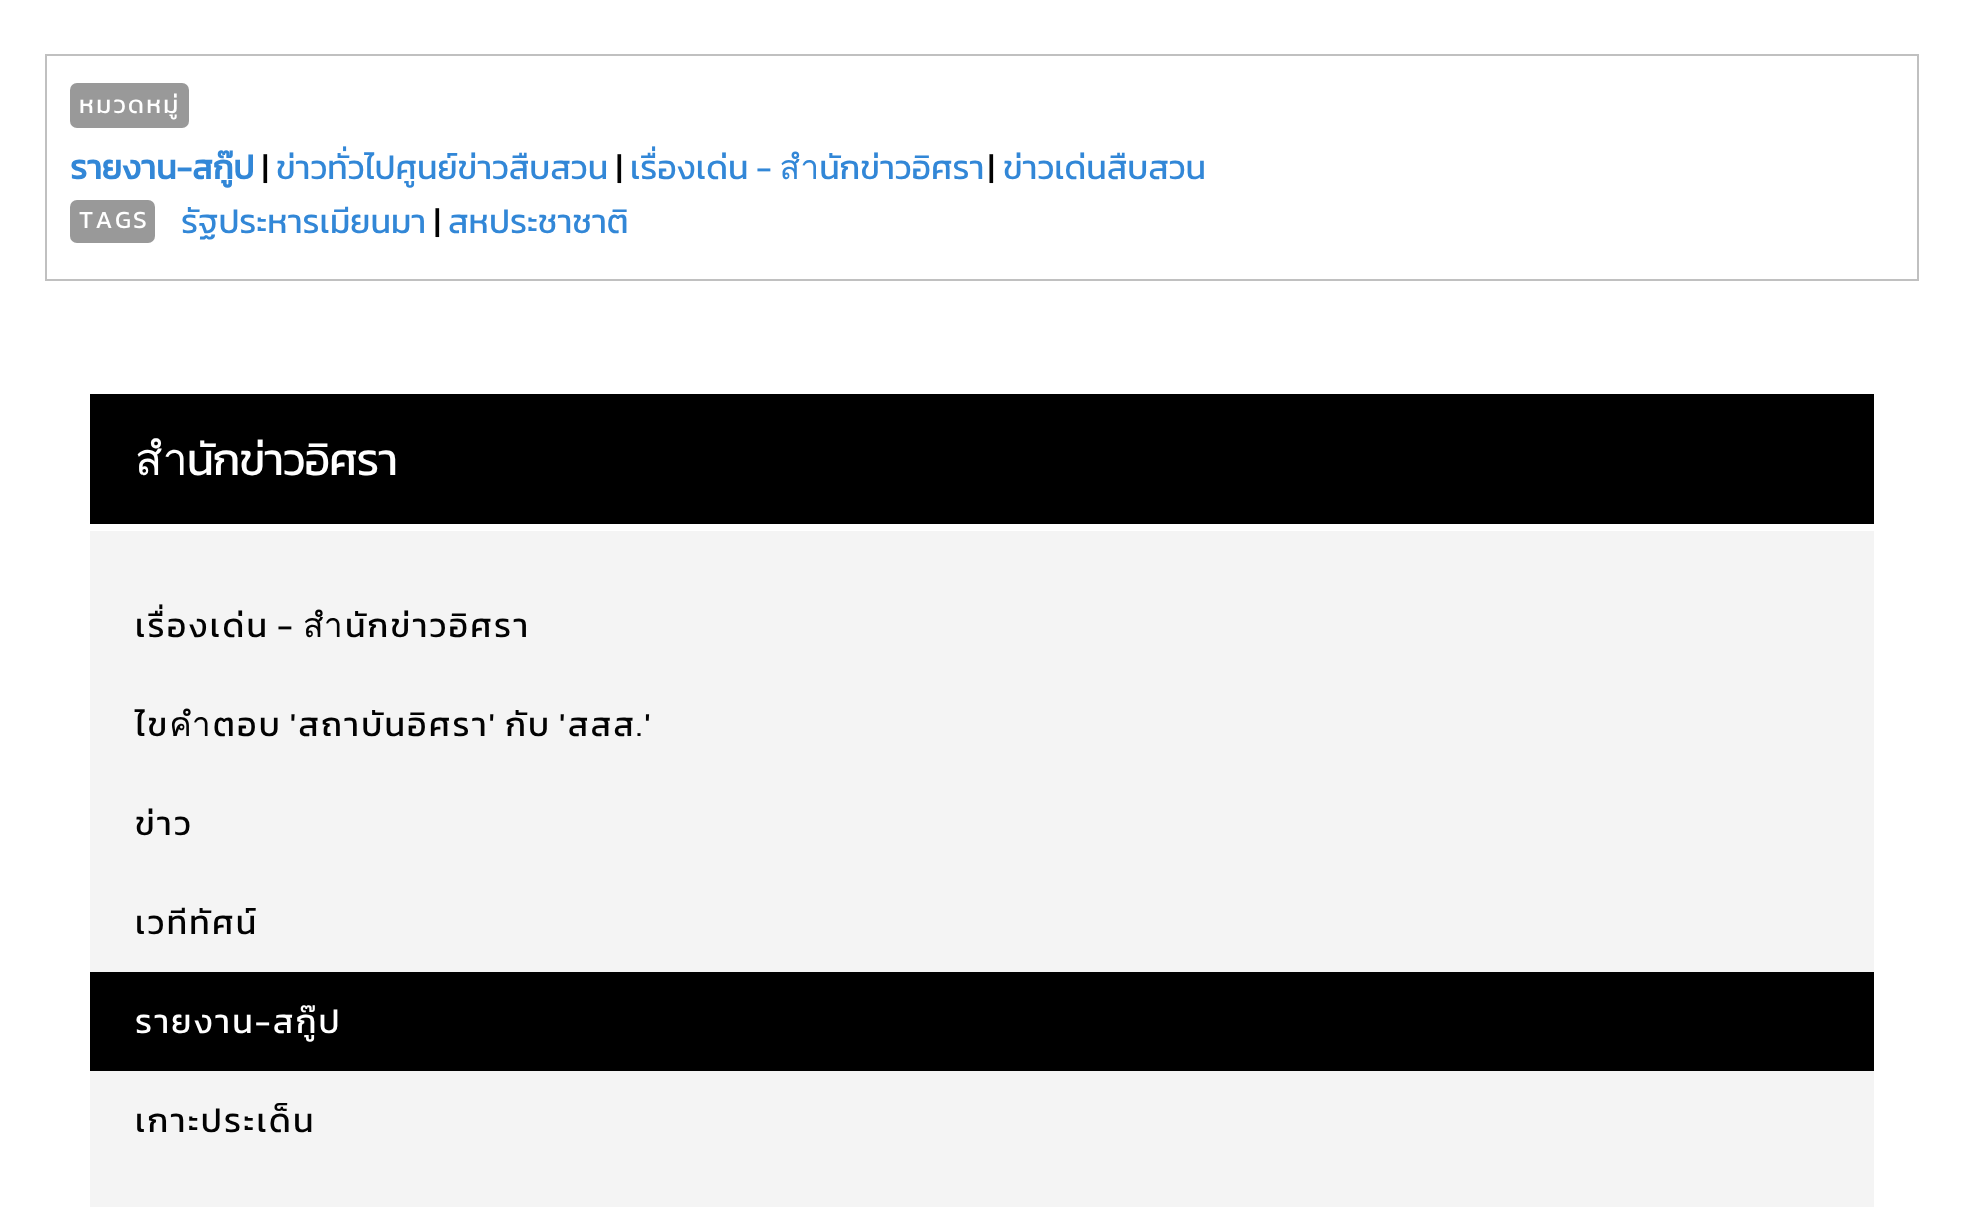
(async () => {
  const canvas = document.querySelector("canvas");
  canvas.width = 1964;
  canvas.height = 1207;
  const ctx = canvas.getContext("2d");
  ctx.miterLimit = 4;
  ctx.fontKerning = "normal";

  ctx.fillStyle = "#ffffff";
  ctx.fillRect(0, 0, 1964, 1207);
  ctx.strokeStyle = "#c0c0c0";
  ctx.lineWidth = 2;
  ctx.strokeRect(46, 55, 1872, 225);
  ctx.fillStyle = "#999999";
  ctx.beginPath();
  ctx.roundRect(70, 83, 119, 45, 7);
  ctx.fill();
  ctx.beginPath();
  ctx.roundRect(70, 200, 85, 43, 7);
  ctx.fill();
  for (const [x, y, w, h, color] of [
    [90, 531, 1784, 676, "#f4f4f4"],
    [90, 394, 1784, 130, "#000000"],
    [90, 972, 1784, 99, "#000000"],
  ]) {
    ctx.fillStyle = color;
    ctx.fillRect(x, y, w, h);
  }
  ctx.letterSpacing = "2.25px";
  ctx.font = "24.75px Kanit";
  ctx.fillStyle = "#ffffff";
  ctx.fillText("หมวดหมู่", 79, 113);
  ctx.letterSpacing = "0px";
  ctx.font = "bold 33.75px Kanit";
  ctx.fillStyle = "#3287d7";
  ctx.fillText("รายงาน-สกู๊ป", 70, 179);
  ctx.font = "33.75px Kanit";
  ctx.fillStyle = "#020202";
  ctx.fillText("|", 262, 179);
  ctx.fillStyle = "#3287d7";
  ctx.fillText("ข่าวทั่วไปศูนย์ข่าวสืบสวน", 276, 179);
  ctx.fillStyle = "#020202";
  ctx.fillText("|", 616, 179);
  ctx.fillStyle = "#3287d7";
  ctx.fillText("เรื่องเด่น - สำนักข่าวอิศรา", 630, 179);
  ctx.fillStyle = "#020202";
  ctx.fillText("|", 988, 179);
  ctx.fillStyle = "#3287d7";
  ctx.fillText("ข่าวเด่นสืบสวน", 1003, 179);
  ctx.letterSpacing = "2.25px";
  ctx.font = "24.75px Kanit";
  ctx.fillStyle = "#ffffff";
  ctx.fillText("TAGS", 79, 228);
  ctx.letterSpacing = "0px";
  ctx.font = "33.75px Kanit";
  ctx.fillStyle = "#3287d7";
  ctx.fillText("รัฐประหารเมียนมา", 181, 233);
  ctx.fillStyle = "#020202";
  ctx.fillText("|", 434, 233);
  ctx.fillStyle = "#3287d7";
  ctx.fillText("สหประชาชาติ", 448, 233);
  ctx.letterSpacing = "-1.1px";
  ctx.font = "45px Kanit";
  ctx.fillStyle = "#ffffff";
  ctx.fillText("สำนักข่าวอิศรา", 135, 475);
  ctx.letterSpacing = "2.25px";
  ctx.wordSpacing = "-2px";
  ctx.font = "33.75px Kanit";
  ctx.fillStyle = "#020202";
  ctx.fillText("เรื่องเด่น - สำนักข่าวอิศรา", 135, 637);
  ctx.fillText("ไขคำตอบ 'สถาบันอิศรา' กับ 'สสส.'", 135, 736);
  ctx.wordSpacing = "0px";
  ctx.fillText("ข่าว", 135, 835);
  ctx.fillText("เวทีทัศน์", 135, 934);
  ctx.fillStyle = "#ffffff";
  ctx.fillText("รายงาน-สกู๊ป", 135, 1033);
  ctx.fillStyle = "#020202";
  ctx.fillText("เกาะประเด็น", 135, 1132);
})();
